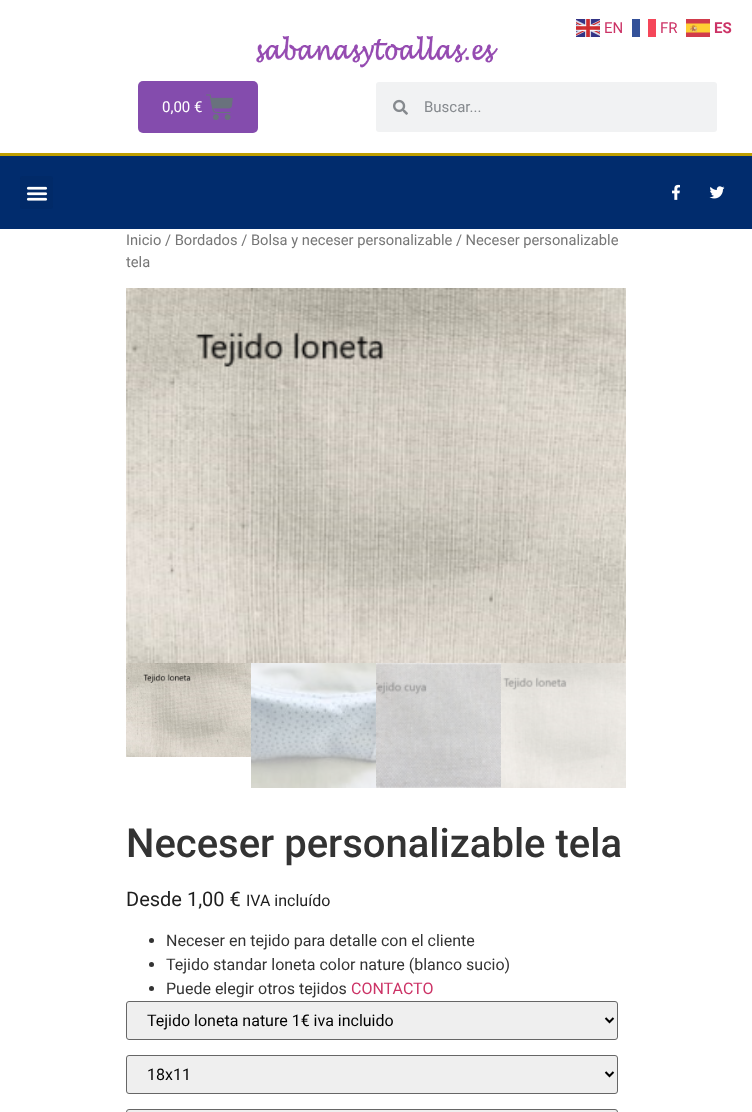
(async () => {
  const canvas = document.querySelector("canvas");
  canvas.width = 752;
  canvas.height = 1112;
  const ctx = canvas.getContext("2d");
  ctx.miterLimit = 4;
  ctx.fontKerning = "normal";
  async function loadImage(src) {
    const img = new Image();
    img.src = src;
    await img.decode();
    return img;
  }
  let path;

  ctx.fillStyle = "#ffffff";
  ctx.fillRect(0, 0, 752, 1112);
  ctx.drawImage(await loadImage("img/1.png"), 576, 19, 24, 18);
  ctx.fillStyle = "#335199";
  ctx.fillRect(632, 19, 8, 18);
  ctx.fillStyle = "#f54659";
  ctx.fillRect(648, 19, 8, 18);
  ctx.drawImage(await loadImage("img/2.png"), 686, 19, 24, 18);
  ctx.drawImage(await loadImage("img/3.png"), 256, 36, 242, 32);
  ctx.fillStyle = "#844cad";
  ctx.beginPath();
  ctx.roundRect(138, 81, 120, 52, 5);
  ctx.fill();
  ctx.drawImage(await loadImage("img/4.png"), 206, 94, 27, 26);
  ctx.fillStyle = "#f1f2f3";
  ctx.beginPath();
  ctx.roundRect(376, 82, 341, 50, 3);
  ctx.fill();
  ctx.drawImage(await loadImage("img/5.png"), 393, 99, 15, 16);
  ctx.fillStyle = "#012c6d";
  ctx.fillRect(0, 156, 752, 73);
  ctx.fillStyle = "#bf9f00";
  ctx.fillRect(0, 153, 752, 3);
  ctx.fillStyle = "#012a68";
  ctx.beginPath();
  ctx.roundRect(20, 176, 33, 33, 3);
  ctx.fill();
  ctx.drawImage(await loadImage("img/6.png"), 26, 186, 22, 15);
  ctx.drawImage(await loadImage("img/7.png"), 672, 184, 8, 16);
  ctx.drawImage(await loadImage("img/8.png"), 709, 186, 16, 13);
  ctx.drawImage(await loadImage("img/9.png"), 126, 288, 500, 375);
  ctx.drawImage(await loadImage("img/10.png"), 126, 663, 125, 94);
  ctx.drawImage(await loadImage("img/11.png"), 251, 663, 125, 125);
  ctx.drawImage(await loadImage("img/12.png"), 376, 663, 125, 125);
  ctx.drawImage(await loadImage("img/13.png"), 501, 663, 125, 125);
  ctx.fillStyle = "#333333";
  ctx.beginPath();
  ctx.arc(151.5, 940.5, 2.5, 0, Math.PI * 2);
  ctx.fill();
  ctx.beginPath();
  ctx.arc(151.5, 964.5, 2.5, 0, Math.PI * 2);
  ctx.fill();
  ctx.beginPath();
  ctx.arc(151.5, 988.5, 2.5, 0, Math.PI * 2);
  ctx.fill();
  ctx.fillStyle = "#efefef";
  ctx.beginPath();
  ctx.roundRect(126.5, 1001.5, 491, 38, 2.5);
  ctx.fill();
  ctx.strokeStyle = "#666666";
  ctx.stroke();
  path = new Path2D("M605.5 1018L609.5 1022L613.5 1018");
  ctx.strokeStyle = "#000000";
  ctx.lineWidth = 2;
  ctx.stroke(path);
  ctx.beginPath();
  ctx.roundRect(126.5, 1055.5, 491, 38, 2.5);
  ctx.fill();
  ctx.strokeStyle = "#666666";
  ctx.lineWidth = 1;
  ctx.stroke();
  path = new Path2D("M605.5 1072L609.5 1076L613.5 1072");
  ctx.strokeStyle = "#000000";
  ctx.lineWidth = 2;
  ctx.stroke(path);
  ctx.beginPath();
  ctx.roundRect(126.5, 1109.5, 491, 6, 2.5);
  ctx.fill();
  ctx.strokeStyle = "#666666";
  ctx.lineWidth = 1;
  ctx.stroke();
  ctx.font = "15px Roboto";
  ctx.fillStyle = "#cc3366";
  ctx.fillText("EN", 604, 33);
  ctx.fillText("FR", 660, 33);
  ctx.font = "bold 15px Roboto";
  ctx.fillText("ES", 714, 33);
  ctx.font = "15px Roboto";
  ctx.fillStyle = "#ffffff";
  ctx.fillText("0,00 €", 162, 112);
  ctx.fillStyle = "#868a8e";
  ctx.fillText("Buscar...", 424, 112);
  ctx.font = "14.7px Roboto";
  ctx.fillStyle = "#767676";
  ctx.fillText("Inicio / Bordados / Bolsa y neceser personalizable / Neceser personalizable", 126, 245);
  ctx.fillText("tela", 126, 267);
  ctx.font = "500 40px Roboto";
  ctx.fillStyle = "#333333";
  ctx.fillText("Neceser personalizable tela", 126, 857);
  ctx.font = "20px Roboto";
  ctx.fillStyle = "#1e1e1e";
  ctx.fillText("Desde 1,00 €", 126, 906);
  ctx.font = "16px Roboto";
  ctx.fillText("IVA incluído", 246, 906);
  ctx.fillStyle = "#333333";
  for (const [text, x, y] of [
    ["Neceser en tejido para detalle con el cliente", 166, 946],
    ["Tejido standar loneta color nature (blanco sucio)", 166, 970],
    ["Puede elegir otros tejidos", 166, 994],
  ]) {
    ctx.fillText(text, x, y);
  }
  ctx.fillStyle = "#cc3366";
  ctx.fillText("CONTACTO", 351, 994);
  ctx.fillStyle = "#000000";
  ctx.fillText("Tejido loneta nature 1€ iva incluido", 147, 1026);
  ctx.fillText("18x11", 147, 1080);
})();
